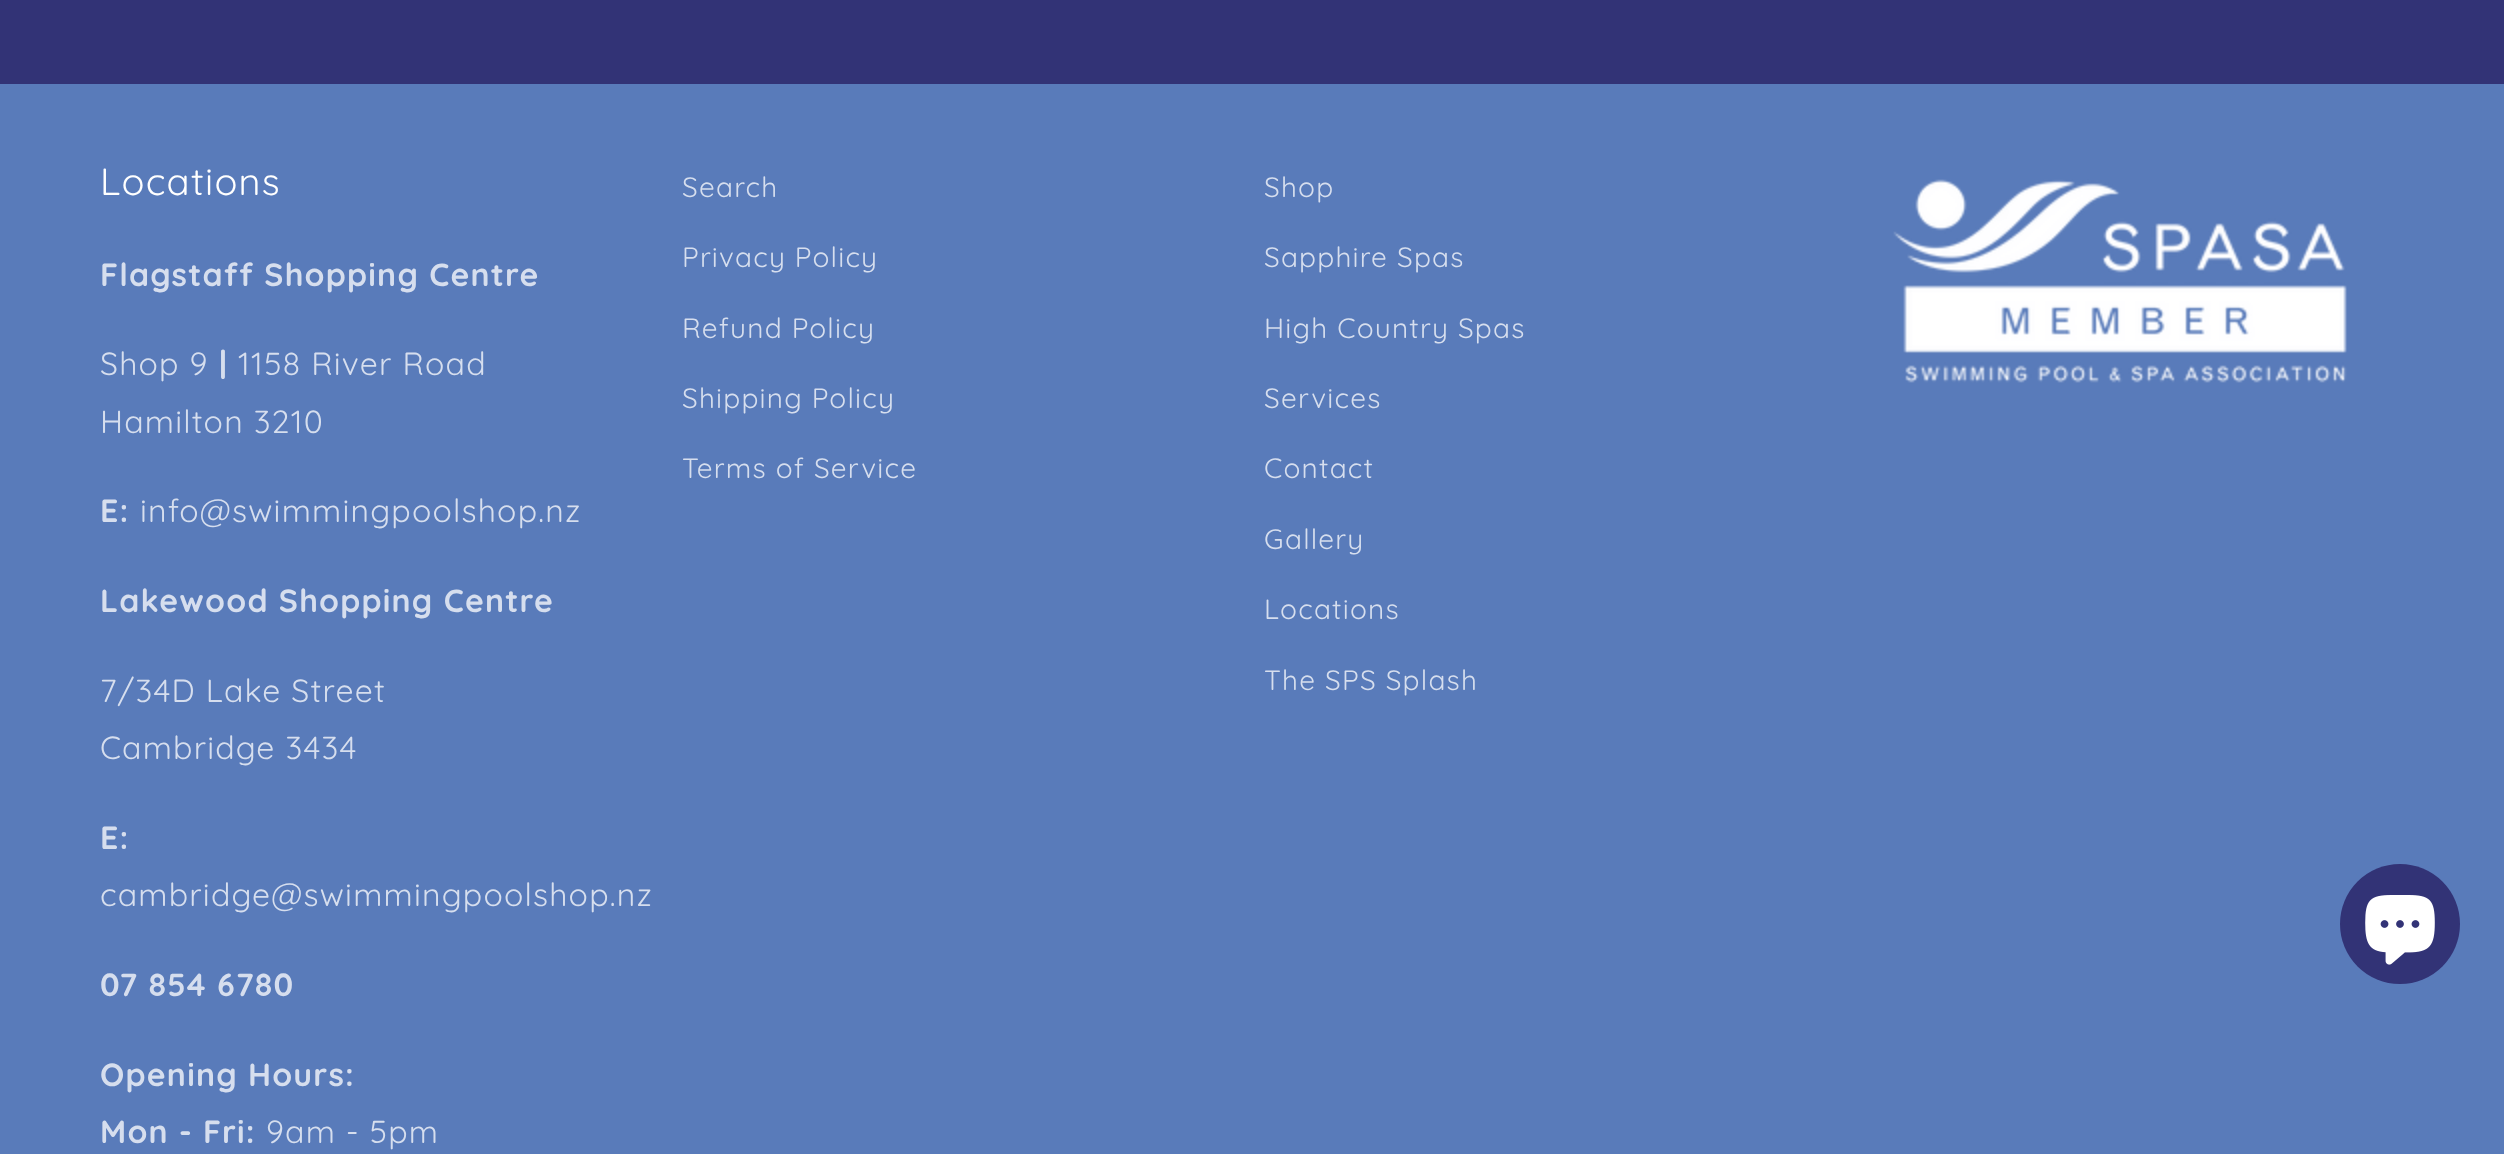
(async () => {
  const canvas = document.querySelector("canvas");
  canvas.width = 2504;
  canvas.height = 1154;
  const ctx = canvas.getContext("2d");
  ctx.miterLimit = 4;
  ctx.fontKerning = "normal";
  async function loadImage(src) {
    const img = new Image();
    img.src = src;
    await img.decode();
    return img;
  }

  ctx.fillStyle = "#323376";
  ctx.fillRect(0, 0, 2504, 1154);
  ctx.fillStyle = "#597bba";
  ctx.fillRect(0, 84, 2504, 1070);
  ctx.drawImage(await loadImage("img/1.png"), 1893, 179, 454, 204);
  ctx.fillStyle = "#323376";
  ctx.beginPath();
  ctx.arc(2400, 924, 60, 0, Math.PI * 2);
  ctx.fill();
  ctx.drawImage(await loadImage("img/2.png"), 2365, 895, 70, 70);
  ctx.letterSpacing = "1.25px";
  ctx.font = "38px Quicksand";
  ctx.fillStyle = "#ffffff";
  ctx.fillText("Locations", 100, 195);
  ctx.letterSpacing = "1.2px";
  ctx.font = "bold 32px Quicksand";
  ctx.fillStyle = "#d6deee";
  ctx.fillText("Flagstaff Shopping Centre", 100, 286);
  ctx.font = "32px Quicksand";
  ctx.fillText("Shop 9", 100, 375);
  ctx.font = "bold 32px Quicksand";
  ctx.fillText("|", 219, 375);
  ctx.font = "32px Quicksand";
  ctx.fillText("1158 River Road", 238, 375);
  ctx.fillText("Hamilton 3210", 100, 433);
  ctx.font = "bold 32px Quicksand";
  ctx.fillText("E:", 100, 522);
  ctx.font = "32px Quicksand";
  ctx.fillText("info@swimmingpoolshop.nz", 140, 522);
  ctx.font = "bold 32px Quicksand";
  ctx.fillText("Lakewood Shopping Centre", 100, 612);
  ctx.font = "32px Quicksand";
  ctx.fillText("7/34D Lake Street", 100, 702);
  ctx.fillText("Cambridge 3434", 100, 759);
  ctx.font = "bold 32px Quicksand";
  ctx.fillText("E:", 100, 849);
  ctx.font = "32px Quicksand";
  ctx.fillText("cambridge@swimmingpoolshop.nz", 100, 906);
  ctx.font = "bold 32px Quicksand";
  for (const [text, x, y] of [
    ["07 854 6780", 100, 996],
    ["Opening Hours:", 100, 1086],
    ["Mon - Fri:", 100, 1143],
  ]) {
    ctx.fillText(text, x, y);
  }
  ctx.font = "32px Quicksand";
  ctx.fillText("9am - 5pm", 266, 1143);
  ctx.font = "28px Quicksand";
  for (const [text, x, y] of [
    ["Search", 682, 197],
    ["Privacy Policy", 682, 267],
    ["Refund Policy", 682, 338],
    ["Shipping Policy", 682, 408],
    ["Terms of Service", 682, 478],
    ["Shop", 1264, 197],
    ["Sapphire Spas", 1264, 267],
    ["High Country Spas", 1264, 338],
    ["Services", 1264, 408],
    ["Contact", 1264, 478],
    ["Gallery", 1264, 549],
    ["Locations", 1264, 619],
    ["The SPS Splash", 1264, 690],
  ]) {
    ctx.fillText(text, x, y);
  }
})();
